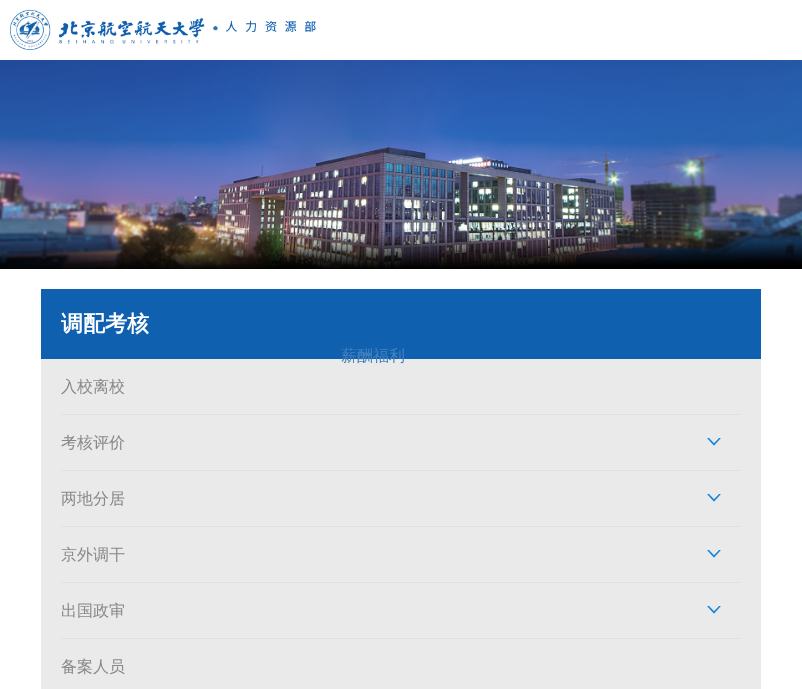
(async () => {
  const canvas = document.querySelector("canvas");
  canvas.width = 802;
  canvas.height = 689;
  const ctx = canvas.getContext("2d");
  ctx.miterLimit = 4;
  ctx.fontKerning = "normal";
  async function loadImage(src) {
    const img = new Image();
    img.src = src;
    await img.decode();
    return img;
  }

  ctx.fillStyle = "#ffffff";
  ctx.fillRect(0, 0, 802, 689);
  ctx.drawImage(await loadImage("img/1.png"), 0, 60, 802, 209);
  for (const [x, y, w, h, color] of [
    [41, 289, 720, 70, "#1060b0"],
    [41, 359, 720, 330, "#eaeaea"],
    [61, 414, 680, 1, "#e0e0e0"],
    [61, 470, 680, 1, "#e0e0e0"],
  ]) {
    ctx.fillStyle = color;
    ctx.fillRect(x, y, w, h);
  }
  ctx.drawImage(await loadImage("img/2.png"), 707, 438, 14, 8);
  ctx.fillRect(61, 526, 680, 1);
  ctx.drawImage(await loadImage("img/2.png"), 707, 494, 14, 8);
  ctx.fillRect(61, 582, 680, 1);
  ctx.drawImage(await loadImage("img/2.png"), 707, 550, 14, 8);
  ctx.fillRect(61, 638, 680, 1);
  ctx.drawImage(await loadImage("img/2.png"), 707, 606, 14, 8);
  ctx.drawImage(await loadImage("img/3.png"), 10, 10, 306, 40);
  ctx.font = "bold 22px WenQuanYi Zen Hei";
  ctx.fillStyle = "#ffffff";
  ctx.fillText("调配考核", 61, 331);
  ctx.font = "500 16px WenQuanYi Zen Hei";
  ctx.fillStyle = "#888888";
  for (const [text, x, y] of [
    ["入校离校", 61, 392],
    ["考核评价", 61, 448],
    ["两地分居", 61, 504],
    ["京外调干", 61, 560],
    ["出国政审", 61, 616],
    ["备案人员", 61, 672],
  ]) {
    ctx.fillText(text, x, y);
  }
  ctx.fillStyle = "#4582be";
  ctx.fillText("薪酬福利", 341, 361);
})();
